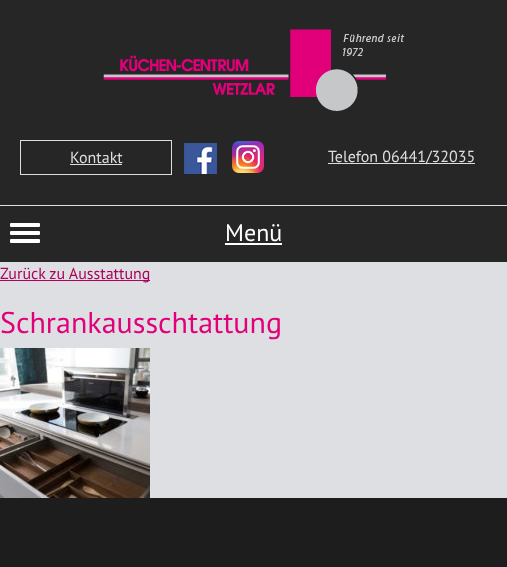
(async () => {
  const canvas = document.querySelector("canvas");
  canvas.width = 507;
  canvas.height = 567;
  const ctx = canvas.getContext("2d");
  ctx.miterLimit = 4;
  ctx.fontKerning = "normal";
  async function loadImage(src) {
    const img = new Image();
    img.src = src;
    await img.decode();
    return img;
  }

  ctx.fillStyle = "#dddfe3";
  ctx.fillRect(0, 0, 507, 567);
  ctx.fillStyle = "#262626";
  ctx.fillRect(0, 0, 507, 262);
  ctx.drawImage(await loadImage("img/1.png"), 103, 29, 302, 82);
  ctx.strokeStyle = "#dddee0";
  ctx.strokeRect(20.5, 140.5, 151, 34);
  ctx.fillStyle = "#dddee0";
  ctx.fillRect(70, 164, 52, 1);
  ctx.drawImage(await loadImage("img/2.png"), 184, 143, 33, 31);
  ctx.drawImage(await loadImage("img/3.png"), 232, 141, 32, 32);
  ctx.fillRect(328, 163, 147, 1);
  ctx.fillRect(0, 205, 507, 1);
  ctx.fillStyle = "#ffffff";
  ctx.beginPath();
  ctx.roundRect(10, 223, 30, 4, 1);
  ctx.fill();
  ctx.fillRect(225, 243, 57, 2);
  ctx.beginPath();
  ctx.roundRect(10, 231, 30, 4, 1);
  ctx.fill();
  ctx.beginPath();
  ctx.roundRect(10, 239, 30, 4, 1);
  ctx.fill();
  ctx.fillStyle = "#ae005c";
  ctx.fillRect(0, 280, 150, 1);
  ctx.drawImage(await loadImage("img/4.png"), 0, 348, 150, 150);
  ctx.fillStyle = "#1d1d1d";
  ctx.fillRect(0, 498, 507, 69);
  ctx.font = "16px PT Sans";
  ctx.fillStyle = "#dddee0";
  ctx.fillText("Kontakt", 70, 163);
  ctx.fillText("Telefon 06441/32035", 328, 162);
  ctx.font = "24px PT Sans";
  ctx.fillStyle = "#ffffff";
  ctx.fillText("Menü", 225, 241);
  ctx.font = "16px PT Sans";
  ctx.fillStyle = "#ae005c";
  ctx.fillText("Zurück zu Ausstattung", 0, 279);
  ctx.font = "30px PT Sans";
  ctx.fillStyle = "#e2007a";
  ctx.fillText("Schrankausschtattung", 0, 333);
})();
